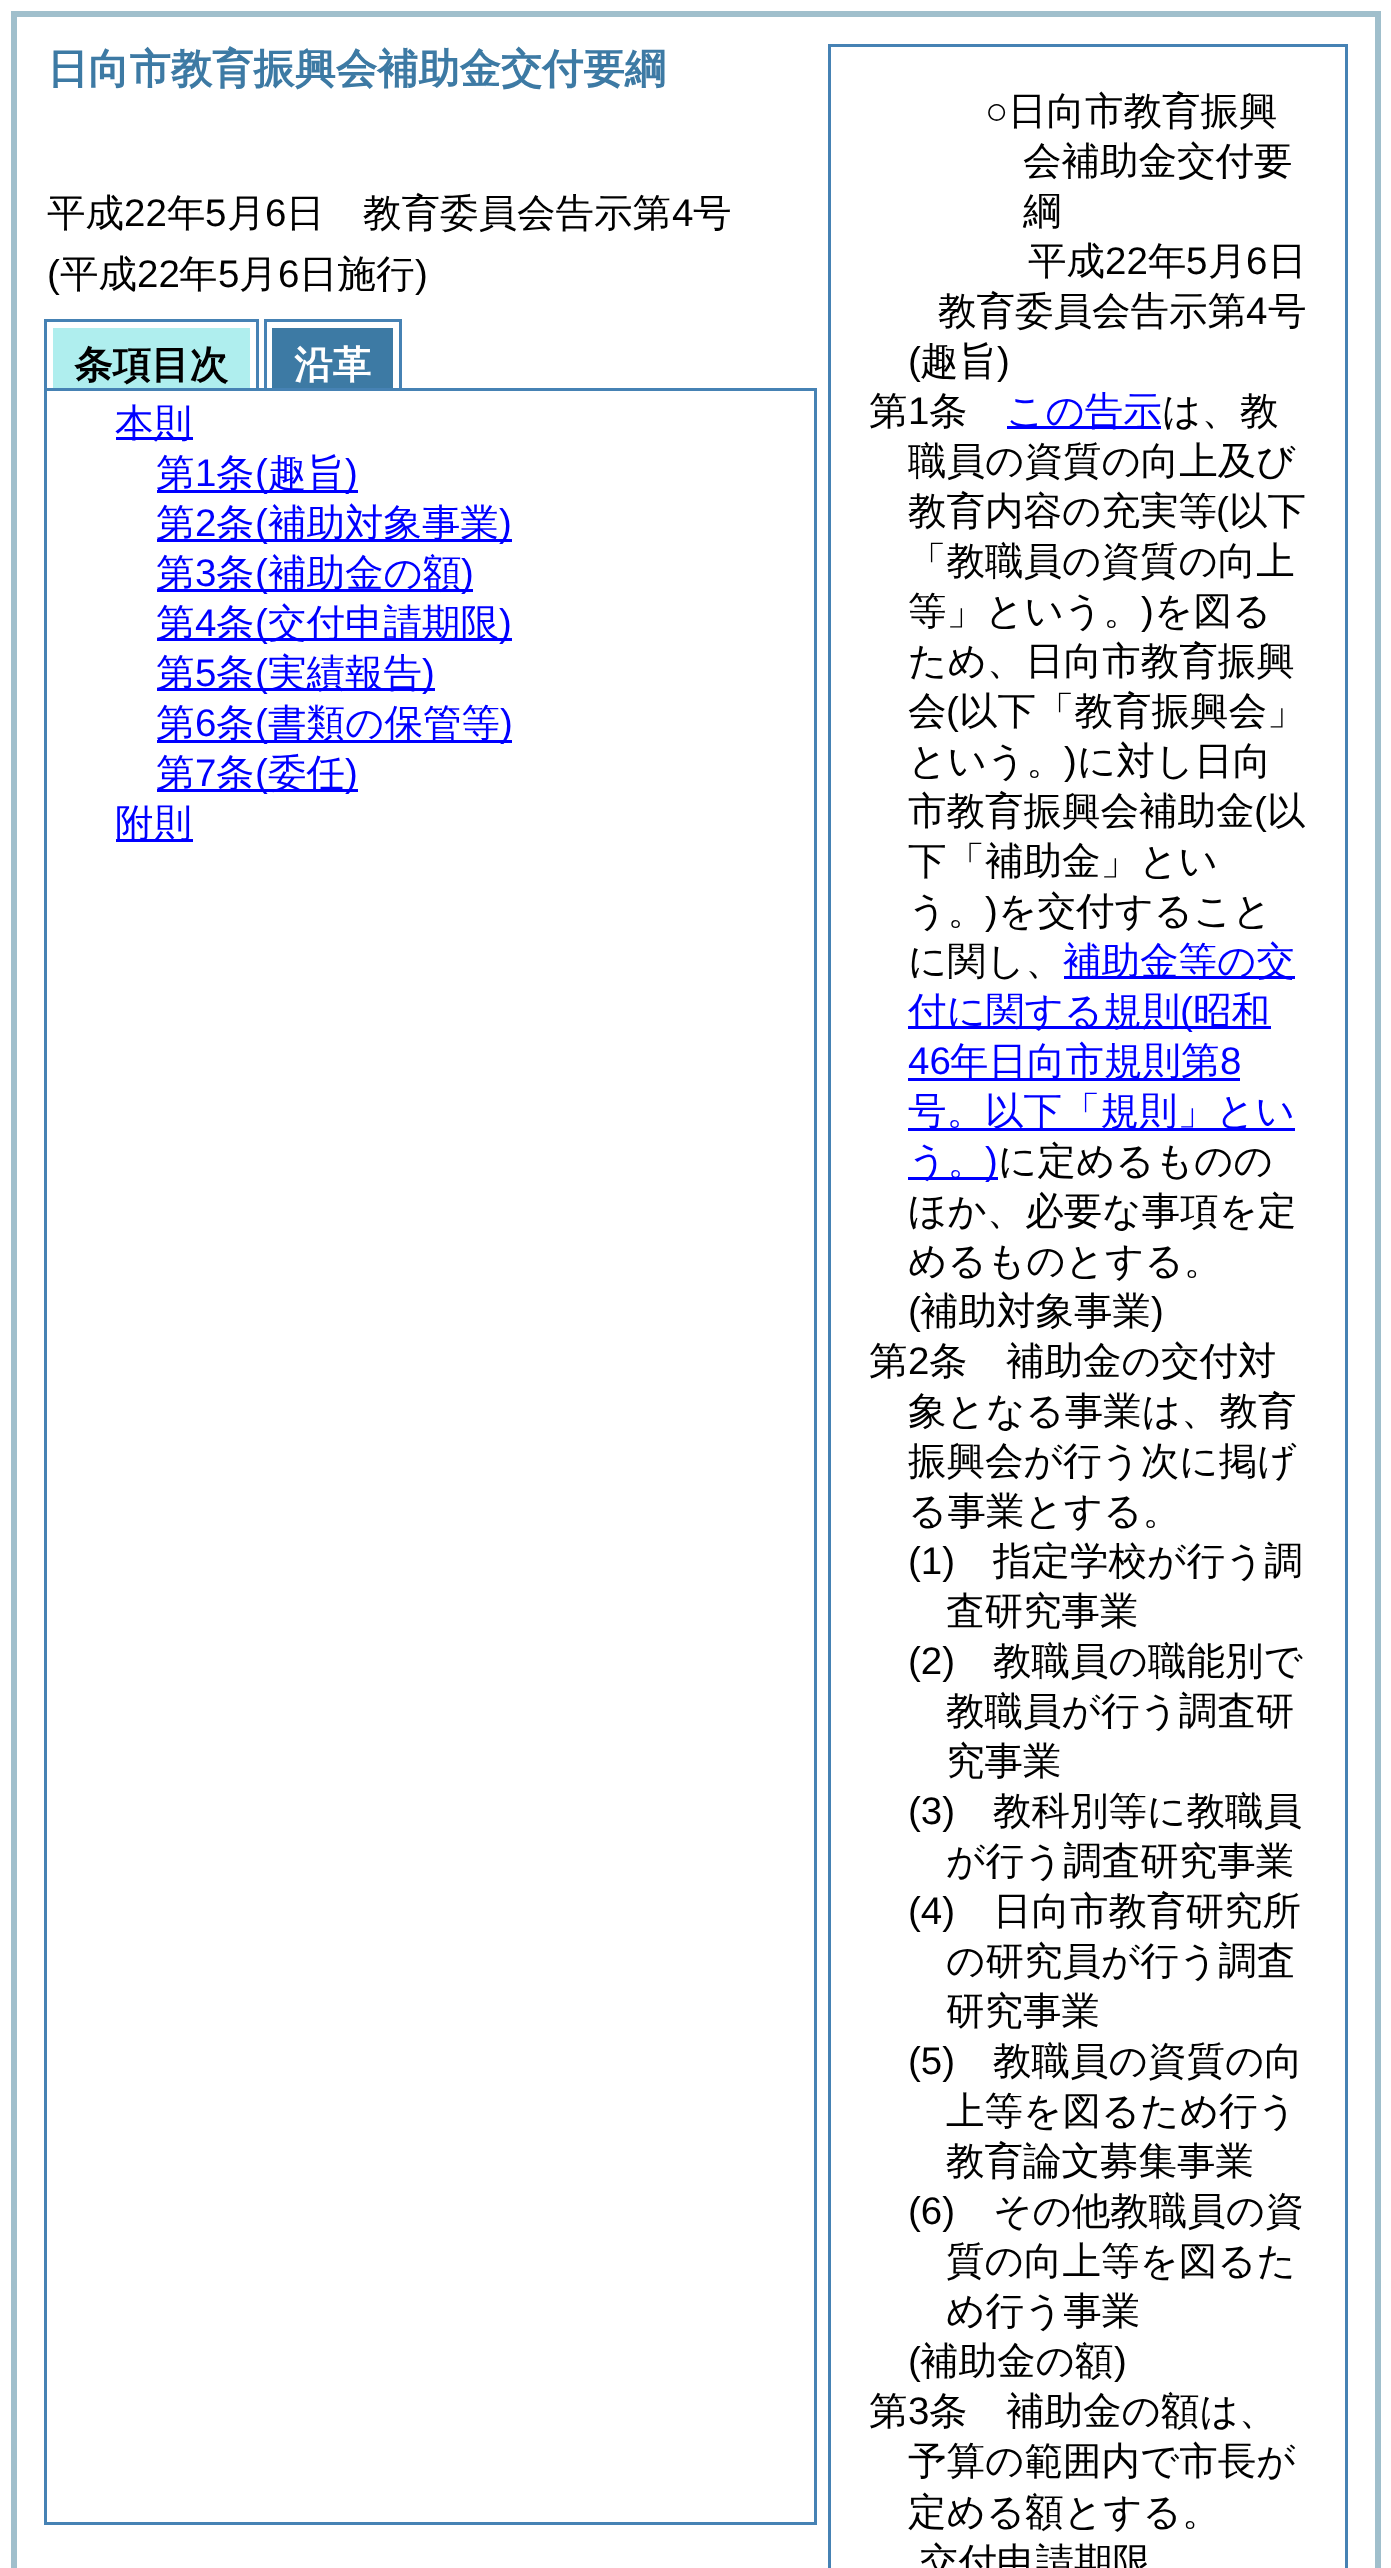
(async () => {
  const canvas = document.querySelector("canvas");
  canvas.width = 1391;
  canvas.height = 2568;
  const ctx = canvas.getContext("2d");
  ctx.miterLimit = 4;
  ctx.fontKerning = "normal";

  ctx.fillStyle = "#ffffff";
  ctx.fillRect(0, 0, 1391, 2568);
  ctx.strokeStyle = "#a0bfcc";
  ctx.lineWidth = 6;
  ctx.strokeRect(14, 14, 1364, 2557);
  for (const [x, y, w, h, color] of [
    [44, 319, 215, 3, "#4682b4"],
    [256, 319, 3, 69, "#4682b4"],
    [44, 319, 3, 72, "#4682b4"],
    [53, 328, 197, 60, "#afeeee"],
    [264, 319, 138, 3, "#4682b4"],
    [399, 319, 3, 69, "#4682b4"],
    [264, 319, 3, 72, "#4682b4"],
    [272, 328, 121, 60, "#3d7aa4"],
  ]) {
    ctx.fillStyle = color;
    ctx.fillRect(x, y, w, h);
  }
  ctx.strokeStyle = "#4682b4";
  ctx.lineWidth = 3;
  ctx.strokeRect(45.5, 389.5, 770, 2134);
  for (const [x, y, w, h, color] of [
    [116, 437, 77, 3, "#0000ff"],
    [157, 490, 201, 3, "#0000ff"],
    [157, 539, 355, 3, "#0000ff"],
    [157, 589, 316, 3, "#0000ff"],
    [157, 638, 355, 3, "#0000ff"],
    [157, 688, 278, 3, "#0000ff"],
    [157, 740, 355, 3, "#0000ff"],
    [157, 789, 201, 3, "#0000ff"],
    [116, 839, 77, 3, "#0000ff"],
  ]) {
    ctx.fillStyle = color;
    ctx.fillRect(x, y, w, h);
  }
  ctx.strokeRect(829.5, 45.5, 517, 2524);
  for (const [x, y, w, h, color] of [
    [1007, 426, 154, 3, "#0000ff"],
    [1064, 976, 231, 3, "#0000ff"],
    [908, 1026, 363, 3, "#0000ff"],
    [908, 1078, 332, 3, "#0000ff"],
    [908, 1128, 387, 3, "#0000ff"],
    [908, 1177, 90, 3, "#0000ff"],
  ]) {
    ctx.fillStyle = color;
    ctx.fillRect(x, y, w, h);
  }
  ctx.font = "bold 41.25px WenQuanYi Zen Hei";
  ctx.fillStyle = "#3d7aa4";
  ctx.fillText("日向市教育振興会補助金交付要綱", 47, 83);
  ctx.font = "500 38.5px WenQuanYi Zen Hei";
  ctx.fillStyle = "#000000";
  ctx.fillText("平成", 47, 226);
  ctx.font = "38.5px Liberation Sans";
  ctx.fillText("22", 124, 226);
  ctx.font = "500 38.5px WenQuanYi Zen Hei";
  ctx.fillText("年", 167, 226);
  ctx.font = "38.5px Liberation Sans";
  ctx.fillText("5", 205, 226);
  ctx.font = "500 38.5px WenQuanYi Zen Hei";
  ctx.fillText("月", 227, 226);
  ctx.font = "38.5px Liberation Sans";
  ctx.fillText("6", 265, 226);
  ctx.font = "500 38.5px WenQuanYi Zen Hei";
  ctx.fillText("日　教育委員会告示第", 286, 226);
  ctx.font = "38.5px Liberation Sans";
  ctx.fillText("4", 672, 226);
  ctx.font = "500 38.5px WenQuanYi Zen Hei";
  ctx.fillText("号", 693, 226);
  ctx.font = "38.5px Liberation Sans";
  ctx.fillText("(", 47, 287);
  ctx.font = "500 38.5px WenQuanYi Zen Hei";
  ctx.fillText("平成", 60, 287);
  ctx.font = "38.5px Liberation Sans";
  ctx.fillText("22", 137, 287);
  ctx.font = "500 38.5px WenQuanYi Zen Hei";
  ctx.fillText("年", 179, 287);
  ctx.font = "38.5px Liberation Sans";
  ctx.fillText("5", 218, 287);
  ctx.font = "500 38.5px WenQuanYi Zen Hei";
  ctx.fillText("月", 239, 287);
  ctx.font = "38.5px Liberation Sans";
  ctx.fillText("6", 278, 287);
  ctx.font = "500 38.5px WenQuanYi Zen Hei";
  ctx.fillText("日施行", 299, 287);
  ctx.font = "38.5px Liberation Sans";
  ctx.fillText(")", 415, 287);
  ctx.font = "bold 38.5px WenQuanYi Zen Hei";
  ctx.fillText("条項目次", 74, 378);
  ctx.fillStyle = "#ffffff";
  ctx.fillText("沿革", 294, 378);
  ctx.font = "500 38.5px WenQuanYi Zen Hei";
  ctx.fillStyle = "#0000ff";
  ctx.fillText("本則", 115, 436);
  ctx.fillText("第", 156, 486);
  ctx.font = "38.5px Liberation Sans";
  ctx.fillText("1", 195, 486);
  ctx.font = "500 38.5px WenQuanYi Zen Hei";
  ctx.fillText("条", 216, 486);
  ctx.font = "38.5px Liberation Sans";
  ctx.fillText("(", 255, 486);
  ctx.font = "500 38.5px WenQuanYi Zen Hei";
  ctx.fillText("趣旨", 268, 486);
  ctx.font = "38.5px Liberation Sans";
  ctx.fillText(")", 345, 486);
  ctx.font = "500 38.5px WenQuanYi Zen Hei";
  ctx.fillText("第", 156, 536);
  ctx.font = "38.5px Liberation Sans";
  ctx.fillText("2", 195, 536);
  ctx.font = "500 38.5px WenQuanYi Zen Hei";
  ctx.fillText("条", 216, 536);
  ctx.font = "38.5px Liberation Sans";
  ctx.fillText("(", 255, 536);
  ctx.font = "500 38.5px WenQuanYi Zen Hei";
  ctx.fillText("補助対象事業", 268, 536);
  ctx.font = "38.5px Liberation Sans";
  ctx.fillText(")", 499, 536);
  ctx.font = "500 38.5px WenQuanYi Zen Hei";
  ctx.fillText("第", 156, 586);
  ctx.font = "38.5px Liberation Sans";
  ctx.fillText("3", 195, 586);
  ctx.font = "500 38.5px WenQuanYi Zen Hei";
  ctx.fillText("条", 216, 586);
  ctx.font = "38.5px Liberation Sans";
  ctx.fillText("(", 255, 586);
  ctx.font = "500 38.5px WenQuanYi Zen Hei";
  ctx.fillText("補助金の額", 268, 586);
  ctx.font = "38.5px Liberation Sans";
  ctx.fillText(")", 461, 586);
  ctx.font = "500 38.5px WenQuanYi Zen Hei";
  ctx.fillText("第", 156, 636);
  ctx.font = "38.5px Liberation Sans";
  ctx.fillText("4", 195, 636);
  ctx.font = "500 38.5px WenQuanYi Zen Hei";
  ctx.fillText("条", 216, 636);
  ctx.font = "38.5px Liberation Sans";
  ctx.fillText("(", 255, 636);
  ctx.font = "500 38.5px WenQuanYi Zen Hei";
  ctx.fillText("交付申請期限", 268, 636);
  ctx.font = "38.5px Liberation Sans";
  ctx.fillText(")", 499, 636);
  ctx.font = "500 38.5px WenQuanYi Zen Hei";
  ctx.fillText("第", 156, 686);
  ctx.font = "38.5px Liberation Sans";
  ctx.fillText("5", 195, 686);
  ctx.font = "500 38.5px WenQuanYi Zen Hei";
  ctx.fillText("条", 216, 686);
  ctx.font = "38.5px Liberation Sans";
  ctx.fillText("(", 255, 686);
  ctx.font = "500 38.5px WenQuanYi Zen Hei";
  ctx.fillText("実績報告", 268, 686);
  ctx.font = "38.5px Liberation Sans";
  ctx.fillText(")", 422, 686);
  ctx.font = "500 38.5px WenQuanYi Zen Hei";
  ctx.fillText("第", 156, 736);
  ctx.font = "38.5px Liberation Sans";
  ctx.fillText("6", 195, 736);
  ctx.font = "500 38.5px WenQuanYi Zen Hei";
  ctx.fillText("条", 216, 736);
  ctx.font = "38.5px Liberation Sans";
  ctx.fillText("(", 255, 736);
  ctx.font = "500 38.5px WenQuanYi Zen Hei";
  ctx.fillText("書類の保管等", 268, 736);
  ctx.font = "38.5px Liberation Sans";
  ctx.fillText(")", 500, 736);
  ctx.font = "500 38.5px WenQuanYi Zen Hei";
  ctx.fillText("第", 156, 786);
  ctx.font = "38.5px Liberation Sans";
  ctx.fillText("7", 195, 786);
  ctx.font = "500 38.5px WenQuanYi Zen Hei";
  ctx.fillText("条", 216, 786);
  ctx.font = "38.5px Liberation Sans";
  ctx.fillText("(", 255, 786);
  ctx.font = "500 38.5px WenQuanYi Zen Hei";
  ctx.fillText("委任", 268, 786);
  ctx.font = "38.5px Liberation Sans";
  ctx.fillText(")", 345, 786);
  ctx.font = "500 38.5px WenQuanYi Zen Hei";
  ctx.fillText("附則", 115, 836);
  ctx.font = "38.5px Liberation Sans";
  ctx.fillStyle = "#000000";
  ctx.fillText("○", 985, 124);
  ctx.font = "500 38.5px WenQuanYi Zen Hei";
  for (const [text, x, y] of [
    ["日向市教育振興", 1008, 124],
    ["会補助金交付要", 1023, 174],
    ["綱", 1023, 224],
    ["平成", 1028, 274],
  ]) {
    ctx.fillText(text, x, y);
  }
  ctx.font = "38.5px Liberation Sans";
  ctx.fillText("22", 1105, 274);
  ctx.font = "500 38.5px WenQuanYi Zen Hei";
  ctx.fillText("年", 1148, 274);
  ctx.font = "38.5px Liberation Sans";
  ctx.fillText("5", 1186, 274);
  ctx.font = "500 38.5px WenQuanYi Zen Hei";
  ctx.fillText("月", 1208, 274);
  ctx.font = "38.5px Liberation Sans";
  ctx.fillText("6", 1246, 274);
  ctx.font = "500 38.5px WenQuanYi Zen Hei";
  ctx.fillText("日", 1268, 274);
  ctx.fillText("教育委員会告示第", 938, 324);
  ctx.font = "38.5px Liberation Sans";
  ctx.fillText("4", 1246, 324);
  ctx.font = "500 38.5px WenQuanYi Zen Hei";
  ctx.fillText("号", 1268, 324);
  ctx.font = "38.5px Liberation Sans";
  ctx.fillText("(", 908, 374);
  ctx.font = "500 38.5px WenQuanYi Zen Hei";
  ctx.fillText("趣旨", 920, 374);
  ctx.font = "38.5px Liberation Sans";
  ctx.fillText(")", 997, 374);
  ctx.font = "500 38.5px WenQuanYi Zen Hei";
  ctx.fillText("第", 869, 424);
  ctx.font = "38.5px Liberation Sans";
  ctx.fillText("1", 908, 424);
  ctx.font = "500 38.5px WenQuanYi Zen Hei";
  ctx.fillText("条", 929, 424);
  ctx.fillStyle = "#0000ff";
  ctx.fillText("この告示", 1006, 424);
  ctx.fillStyle = "#000000";
  for (const [text, x, y] of [
    ["は、教", 1162, 424],
    ["職員の資質の向上及び", 908, 474],
    ["教育内容の充実等", 908, 524],
  ]) {
    ctx.fillText(text, x, y);
  }
  ctx.font = "38.5px Liberation Sans";
  ctx.fillText("(", 1216, 524);
  ctx.font = "500 38.5px WenQuanYi Zen Hei";
  for (const [text, x, y] of [
    ["以下", 1229, 524],
    ["「教職員の資質の向上", 908, 574],
    ["等」という。", 908, 624],
  ]) {
    ctx.fillText(text, x, y);
  }
  ctx.font = "38.5px Liberation Sans";
  ctx.fillText(")", 1141, 624);
  ctx.font = "500 38.5px WenQuanYi Zen Hei";
  for (const [text, x, y] of [
    ["を図る", 1154, 624],
    ["ため、日向市教育振興", 908, 674],
    ["会", 908, 724],
  ]) {
    ctx.fillText(text, x, y);
  }
  ctx.font = "38.5px Liberation Sans";
  ctx.fillText("(", 946, 724);
  ctx.font = "500 38.5px WenQuanYi Zen Hei";
  ctx.fillText("以下「教育振興会」", 959, 724);
  ctx.fillText("という。", 908, 774);
  ctx.font = "38.5px Liberation Sans";
  ctx.fillText(")", 1064, 774);
  ctx.font = "500 38.5px WenQuanYi Zen Hei";
  ctx.fillText("に対し日向", 1077, 774);
  ctx.fillText("市教育振興会補助金", 908, 824);
  ctx.font = "38.5px Liberation Sans";
  ctx.fillText("(", 1254, 824);
  ctx.font = "500 38.5px WenQuanYi Zen Hei";
  for (const [text, x, y] of [
    ["以", 1267, 824],
    ["下「補助金」とい", 908, 874],
    ["う。", 908, 924],
  ]) {
    ctx.fillText(text, x, y);
  }
  ctx.font = "38.5px Liberation Sans";
  ctx.fillText(")", 985, 924);
  ctx.font = "500 38.5px WenQuanYi Zen Hei";
  ctx.fillText("を交付すること", 998, 924);
  ctx.fillText("に関し、", 908, 974);
  ctx.fillStyle = "#0000ff";
  ctx.fillText("補助金等の交", 1063, 974);
  ctx.fillText("付に関する規則", 908, 1024);
  ctx.font = "38.5px Liberation Sans";
  ctx.fillText("(", 1180, 1024);
  ctx.font = "500 38.5px WenQuanYi Zen Hei";
  ctx.fillText("昭和", 1193, 1024);
  ctx.font = "38.5px Liberation Sans";
  ctx.fillText("46", 908, 1074);
  ctx.font = "500 38.5px WenQuanYi Zen Hei";
  ctx.fillText("年日向市規則第", 950, 1074);
  ctx.font = "38.5px Liberation Sans";
  ctx.fillText("8", 1220, 1074);
  ctx.font = "500 38.5px WenQuanYi Zen Hei";
  ctx.fillText("号。以下「規則」とい", 908, 1124);
  ctx.fillText("う。", 908, 1174);
  ctx.font = "38.5px Liberation Sans";
  ctx.fillText(")", 985, 1174);
  ctx.font = "500 38.5px WenQuanYi Zen Hei";
  ctx.fillStyle = "#000000";
  for (const [text, x, y] of [
    ["に定めるものの", 998, 1174],
    ["ほか、必要な事項を定", 908, 1224],
    ["めるものとする。", 908, 1274],
  ]) {
    ctx.fillText(text, x, y);
  }
  ctx.font = "38.5px Liberation Sans";
  ctx.fillText("(", 908, 1324);
  ctx.font = "500 38.5px WenQuanYi Zen Hei";
  ctx.fillText("補助対象事業", 920, 1324);
  ctx.font = "38.5px Liberation Sans";
  ctx.fillText(")", 1151, 1324);
  ctx.font = "500 38.5px WenQuanYi Zen Hei";
  ctx.fillText("第", 869, 1374);
  ctx.font = "38.5px Liberation Sans";
  ctx.fillText("2", 908, 1374);
  ctx.font = "500 38.5px WenQuanYi Zen Hei";
  for (const [text, x, y] of [
    ["条", 929, 1374],
    ["補助金の交付対", 1006, 1374],
    ["象となる事業は、教育", 908, 1424],
    ["振興会が行う次に掲げ", 908, 1474],
    ["る事業とする。", 908, 1524],
  ]) {
    ctx.fillText(text, x, y);
  }
  ctx.font = "38.5px Liberation Sans";
  ctx.fillText("(1)", 908, 1574);
  ctx.font = "500 38.5px WenQuanYi Zen Hei";
  ctx.fillText("指定学校が行う調", 993, 1574);
  ctx.fillText("査研究事業", 946, 1624);
  ctx.font = "38.5px Liberation Sans";
  ctx.fillText("(2)", 908, 1674);
  ctx.font = "500 38.5px WenQuanYi Zen Hei";
  for (const [text, x, y] of [
    ["教職員の職能別で", 993, 1674],
    ["教職員が行う調査研", 946, 1724],
    ["究事業", 946, 1774],
  ]) {
    ctx.fillText(text, x, y);
  }
  ctx.font = "38.5px Liberation Sans";
  ctx.fillText("(3)", 908, 1824);
  ctx.font = "500 38.5px WenQuanYi Zen Hei";
  ctx.fillText("教科別等に教職員", 993, 1824);
  ctx.fillText("が行う調査研究事業", 946, 1874);
  ctx.font = "38.5px Liberation Sans";
  ctx.fillText("(4)", 908, 1924);
  ctx.font = "500 38.5px WenQuanYi Zen Hei";
  for (const [text, x, y] of [
    ["日向市教育研究所", 993, 1924],
    ["の研究員が行う調査", 946, 1974],
    ["研究事業", 946, 2024],
  ]) {
    ctx.fillText(text, x, y);
  }
  ctx.font = "38.5px Liberation Sans";
  ctx.fillText("(5)", 908, 2074);
  ctx.font = "500 38.5px WenQuanYi Zen Hei";
  for (const [text, x, y] of [
    ["教職員の資質の向", 993, 2074],
    ["上等を図るため行う", 946, 2124],
    ["教育論文募集事業", 946, 2174],
  ]) {
    ctx.fillText(text, x, y);
  }
  ctx.font = "38.5px Liberation Sans";
  ctx.fillText("(6)", 908, 2224);
  ctx.font = "500 38.5px WenQuanYi Zen Hei";
  for (const [text, x, y] of [
    ["その他教職員の資", 993, 2224],
    ["質の向上等を図るた", 946, 2274],
    ["め行う事業", 946, 2324],
  ]) {
    ctx.fillText(text, x, y);
  }
  ctx.font = "38.5px Liberation Sans";
  ctx.fillText("(", 908, 2374);
  ctx.font = "500 38.5px WenQuanYi Zen Hei";
  ctx.fillText("補助金の額", 920, 2374);
  ctx.font = "38.5px Liberation Sans";
  ctx.fillText(")", 1114, 2374);
  ctx.font = "500 38.5px WenQuanYi Zen Hei";
  ctx.fillText("第", 869, 2424);
  ctx.font = "38.5px Liberation Sans";
  ctx.fillText("3", 908, 2424);
  ctx.font = "500 38.5px WenQuanYi Zen Hei";
  for (const [text, x, y] of [
    ["条", 929, 2424],
    ["補助金の額は、", 1006, 2424],
    ["予算の範囲内で市長が", 908, 2474],
    ["定める額とする。", 908, 2525],
    ["交付申請期限", 920, 2575],
  ]) {
    ctx.fillText(text, x, y);
  }
})();
